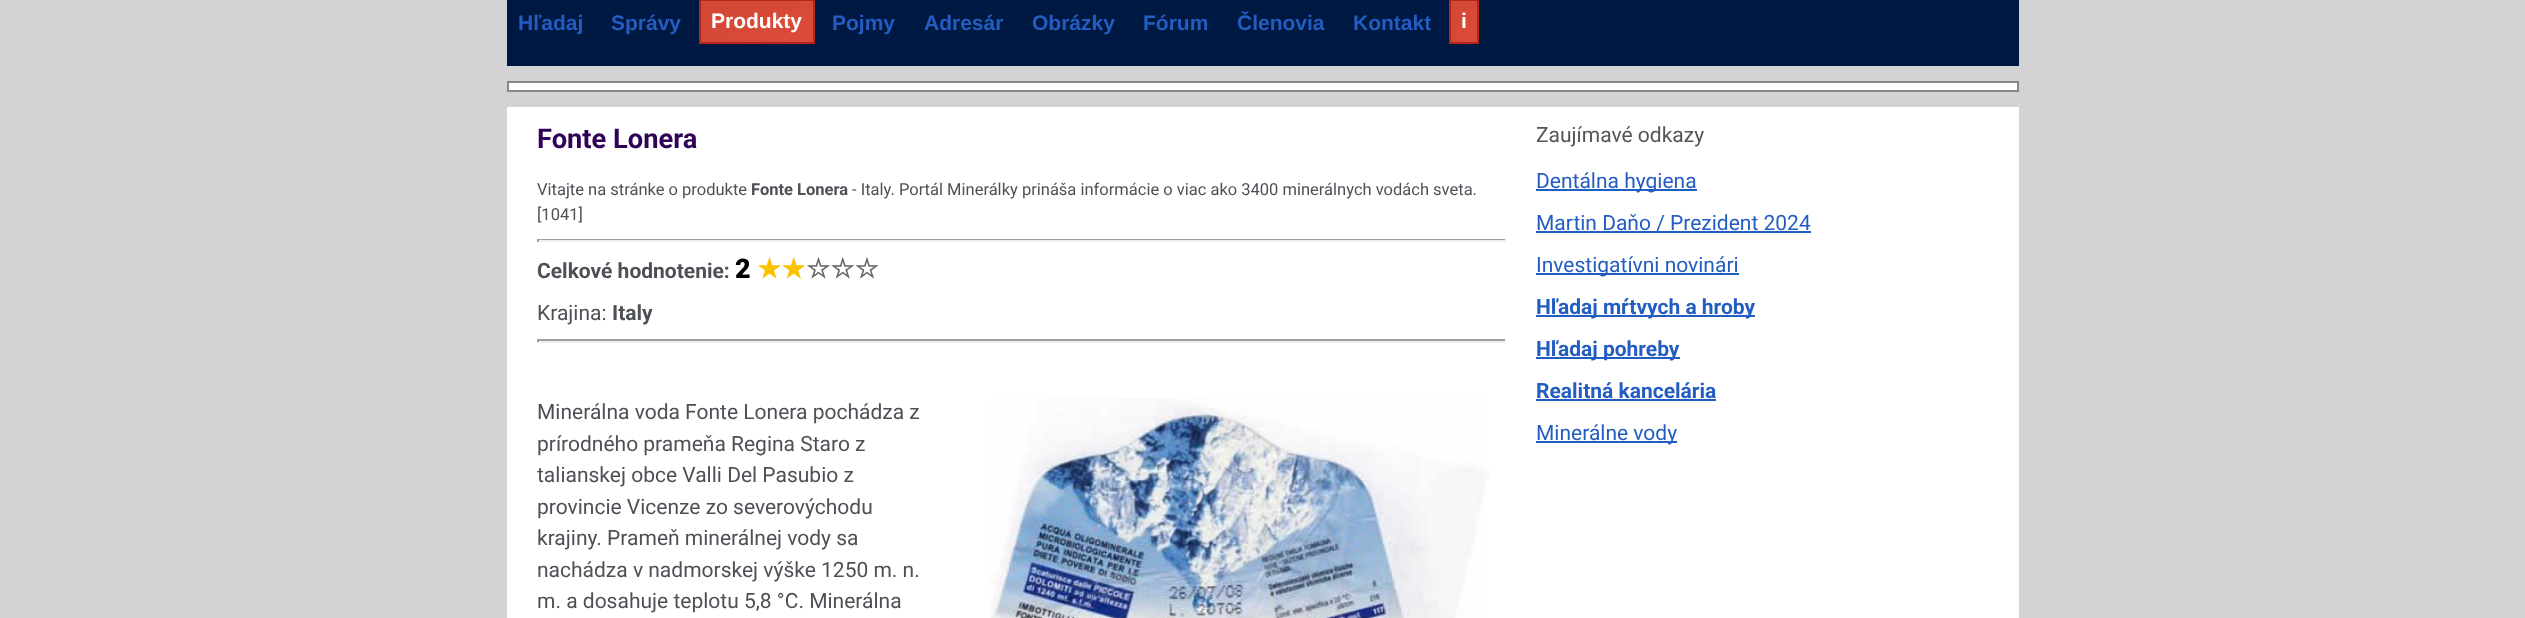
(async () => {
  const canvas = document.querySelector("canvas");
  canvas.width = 2525;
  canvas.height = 618;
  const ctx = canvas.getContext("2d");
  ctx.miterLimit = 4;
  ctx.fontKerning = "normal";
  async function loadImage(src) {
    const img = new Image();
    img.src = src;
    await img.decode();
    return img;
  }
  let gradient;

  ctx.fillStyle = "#d3d3d3";
  ctx.fillRect(0, 0, 2525, 618);
  ctx.fillStyle = "#001942";
  ctx.fillRect(507, 0, 1512, 66);
  gradient = ctx.createLinearGradient(771, 58, 743, -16);
  gradient.addColorStop(0, "#dc4b39");
  gradient.addColorStop(1, "#d24735");
  ctx.fillStyle = gradient;
  ctx.fillRect(701, 1, 112, 41);
  ctx.strokeStyle = "#b0281a";
  ctx.lineWidth = 2;
  ctx.strokeRect(700, 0, 114, 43);
  gradient = ctx.createLinearGradient(1483, 33, 1445, 9);
  gradient.addColorStop(0, "#dc4b39");
  gradient.addColorStop(1, "#d24735");
  ctx.fillStyle = gradient;
  ctx.fillRect(1451, 1, 26, 41);
  ctx.strokeRect(1450, 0, 28, 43);
  ctx.fillStyle = "#ffffff";
  ctx.beginPath();
  ctx.rect(508, 82, 1510, 9);
  ctx.fill();
  ctx.strokeStyle = "#888888";
  ctx.stroke();
  for (const [x, y, w, h, color] of [
    [507, 107, 1512, 511, "#ffffff"],
    [537, 239, 969, 1, "#9f9f9f"],
    [1505, 239, 1, 3, "#eeeeee"],
    [537, 240, 969, 2, "#eeeeee"],
    [537, 239, 2, 3, "#9f9f9f"],
    [537, 339, 969, 2, "#9f9f9f"],
    [1505, 339, 1, 3, "#eeeeee"],
    [537, 341, 969, 2, "#eeeeee"],
    [537, 339, 2, 3, "#9f9f9f"],
  ]) {
    ctx.fillStyle = color;
    ctx.fillRect(x, y, w, h);
  }
  ctx.drawImage(await loadImage("img/1.png"), 990, 398, 499, 220);
  for (const [x, y, w, h, color] of [
    [1536, 189, 161, 2, "#245dc1"],
    [1536, 231, 275, 2, "#245dc1"],
    [1536, 273, 203, 2, "#245dc1"],
    [1536, 315, 219, 2, "#245dc1"],
    [1536, 357, 144, 2, "#245dc1"],
    [1536, 399, 180, 2, "#245dc1"],
    [1536, 441, 141, 2, "#245dc1"],
  ]) {
    ctx.fillStyle = color;
    ctx.fillRect(x, y, w, h);
  }
  ctx.font = "bold 21px Liberation Sans";
  ctx.fillText("Hľadaj", 518, 30);
  ctx.fillText("Správy", 611, 30);
  ctx.fillStyle = "#ffffff";
  ctx.fillText("Produkty", 711, 28);
  ctx.fillStyle = "#245dc1";
  for (const [text, x, y] of [
    ["Pojmy", 832, 30],
    ["Adresár", 924, 30],
    ["Obrázky", 1032, 30],
    ["Fórum", 1143, 30],
    ["Členovia", 1237, 30],
    ["Kontakt", 1353, 30],
  ]) {
    ctx.fillText(text, x, y);
  }
  ctx.fillStyle = "#ffffff";
  ctx.fillText("i", 1461, 28);
  ctx.font = "bold 27.25px Roboto";
  ctx.fillStyle = "#300357";
  ctx.fillText("Fonte Lonera", 537, 148);
  ctx.font = "16.5px Roboto";
  ctx.fillStyle = "#4d5156";
  ctx.fillText("Vitajte na stránke o produkte", 537, 195);
  ctx.font = "bold 16.5px Roboto";
  ctx.fillText("Fonte Lonera", 751, 195);
  ctx.font = "16.5px Roboto";
  ctx.fillText("- Italy. Portál Minerálky prináša informácie o viac ako 3400 minerálnych vodách sveta.", 852, 195);
  ctx.fillText("[1041]", 537, 220);
  ctx.font = "bold 21px Roboto";
  ctx.fillText("Celkové hodnotenie:", 537, 278);
  ctx.font = "900 27px Roboto";
  ctx.fillStyle = "#000000";
  ctx.fillText("2", 735, 278);
  ctx.font = "bold 27px DejaVu Sans";
  ctx.fillStyle = "#fcc200";
  ctx.fillText("★★", 757, 278);
  ctx.fillStyle = "#666666";
  ctx.fillText("☆☆☆", 806, 278);
  ctx.font = "21px Roboto";
  ctx.fillStyle = "#4d5156";
  ctx.fillText("Krajina:", 537, 320);
  ctx.font = "bold 21px Roboto";
  ctx.fillText("Italy", 612, 320);
  ctx.font = "21px Roboto";
  for (const [text, x, y] of [
    ["Minerálna voda Fonte Lonera pochádza z", 537, 419],
    ["prírodného prameňa Regina Staro z", 537, 451],
    ["talianskej obce Valli Del Pasubio z", 537, 482],
    ["provincie Vicenze zo severovýchodu", 537, 514],
    ["krajiny. Prameň minerálnej vody sa", 537, 545],
    ["nachádza v nadmorskej výške 1250 m. n.", 537, 577],
    ["m. a dosahuje teplotu 5,8 °C. Minerálna", 537, 608],
  ]) {
    ctx.fillText(text, x, y);
  }
  ctx.fillStyle = "#555555";
  ctx.fillText("Zaujímavé odkazy", 1536, 142);
  ctx.fillStyle = "#245dc1";
  for (const [text, x, y] of [
    ["Dentálna hygiena", 1536, 188],
    ["Martin Daňo / Prezident 2024", 1536, 230],
    ["Investigatívni novinári", 1536, 272],
  ]) {
    ctx.fillText(text, x, y);
  }
  ctx.font = "bold 21px Roboto";
  for (const [text, x, y] of [
    ["Hľadaj mŕtvych a hroby", 1536, 314],
    ["Hľadaj pohreby", 1536, 356],
    ["Realitná kancelária", 1536, 398],
  ]) {
    ctx.fillText(text, x, y);
  }
  ctx.font = "21px Roboto";
  ctx.fillText("Minerálne vody", 1536, 440);
})();
